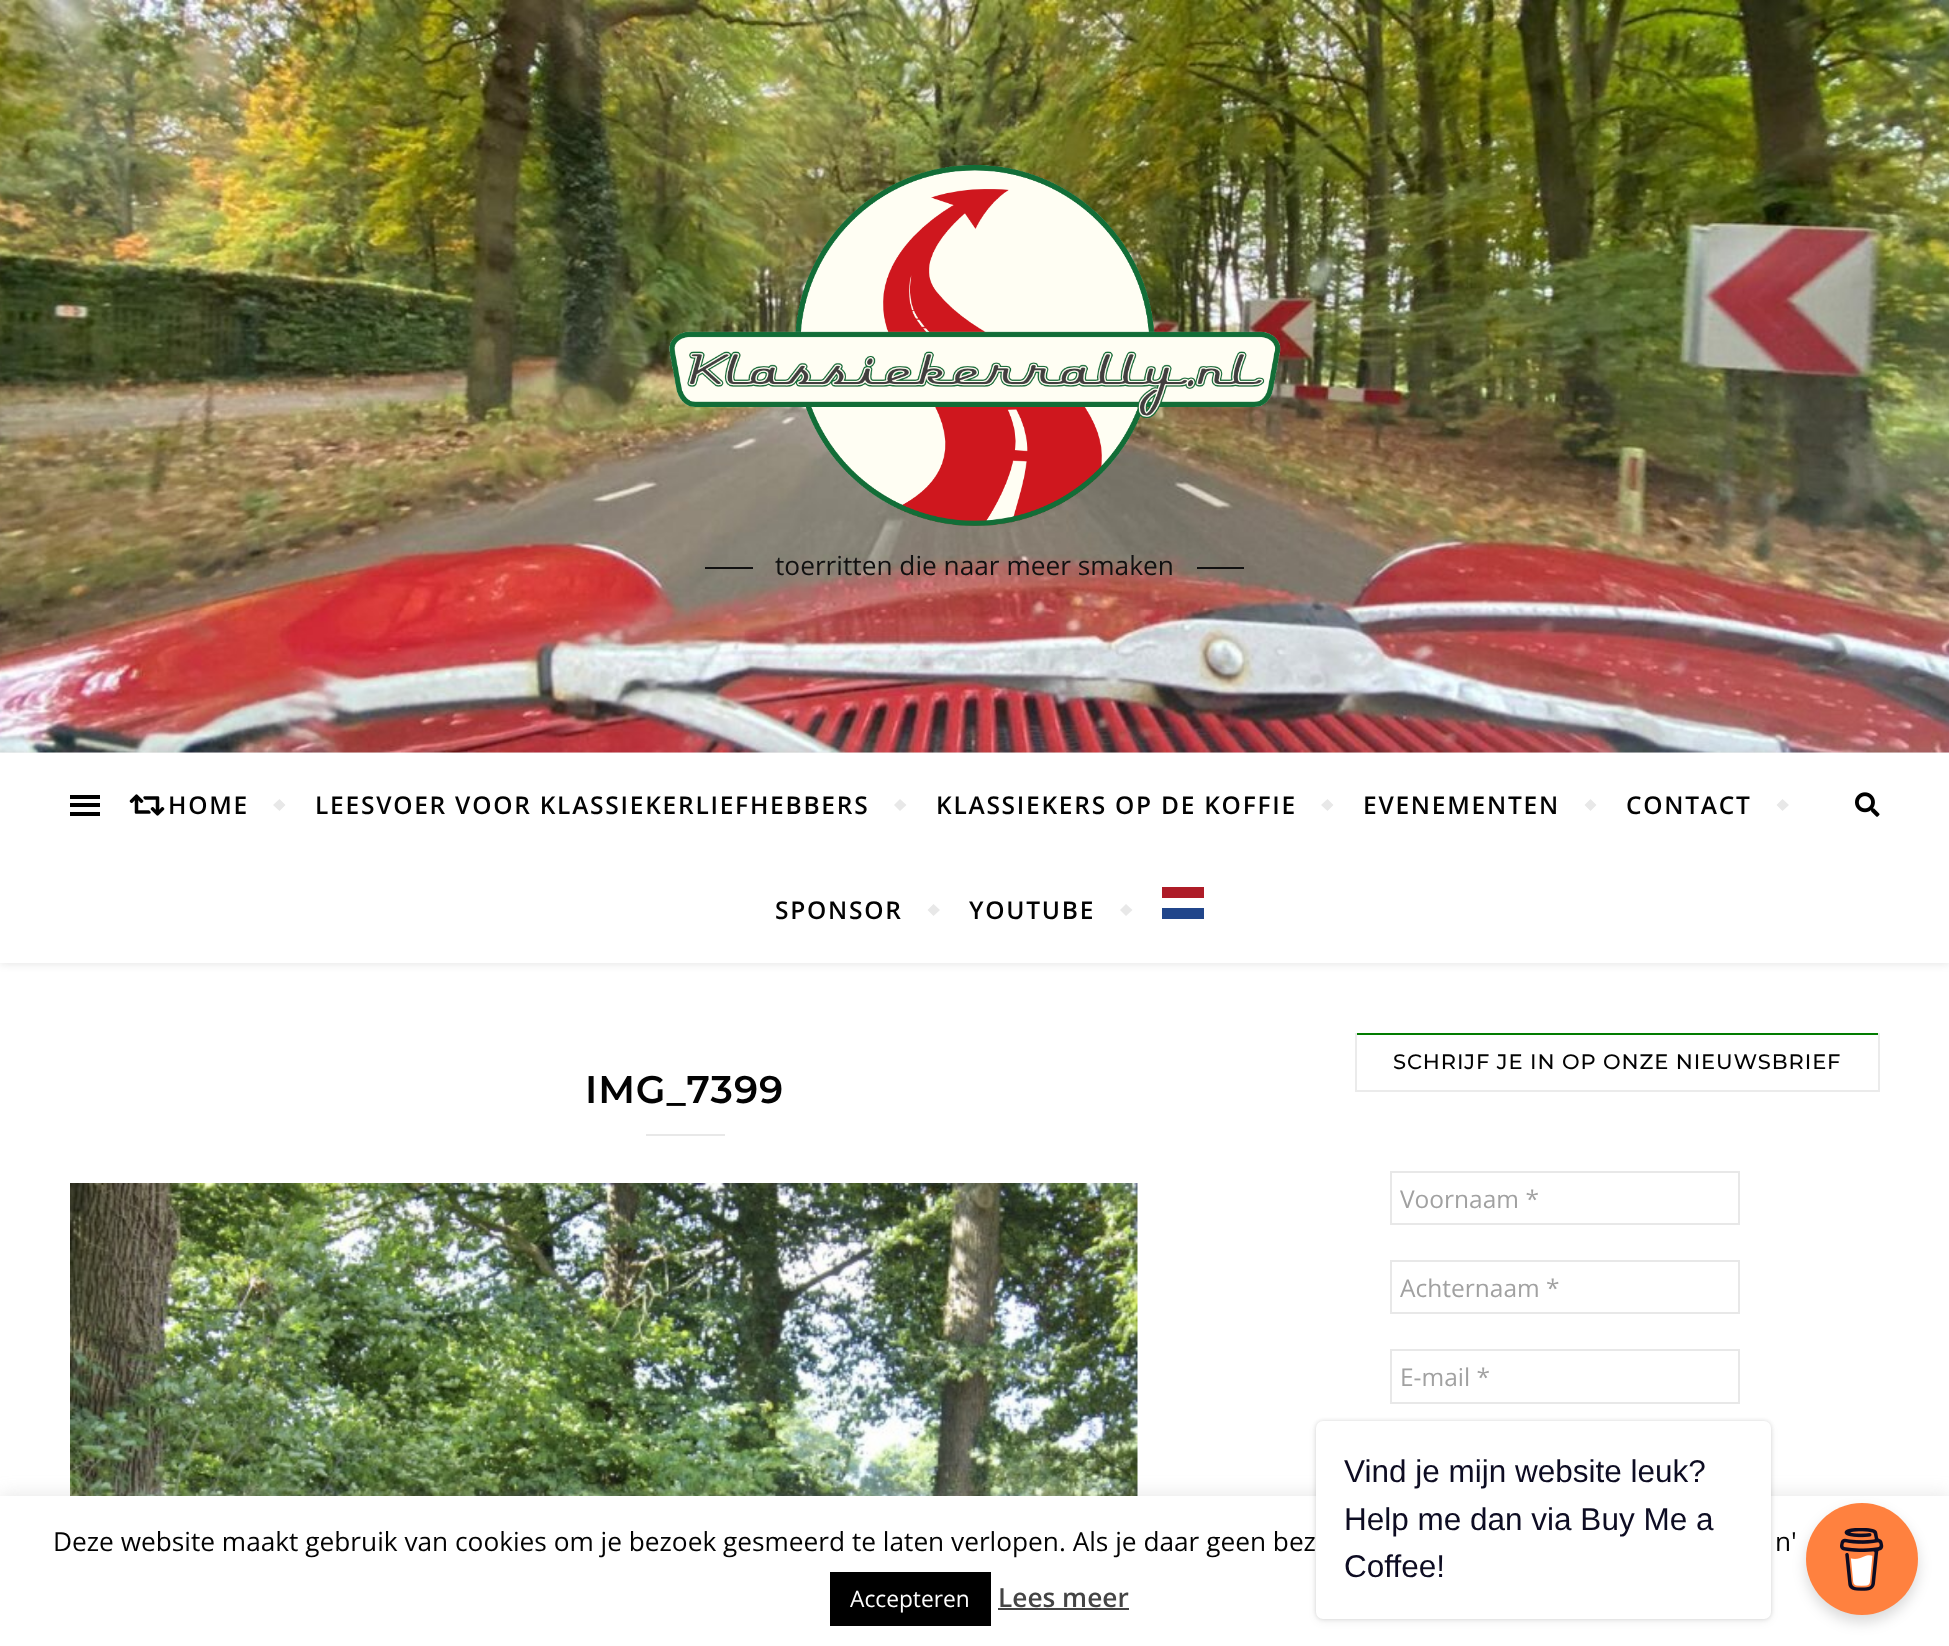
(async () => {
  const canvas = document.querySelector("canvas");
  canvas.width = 1949;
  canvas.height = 1646;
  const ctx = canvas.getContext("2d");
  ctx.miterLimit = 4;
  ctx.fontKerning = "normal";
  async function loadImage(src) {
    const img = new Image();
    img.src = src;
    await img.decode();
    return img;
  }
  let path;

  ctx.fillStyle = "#ffffff";
  ctx.fillRect(0, 0, 1949, 1646);
  ctx.drawImage(await loadImage("img/1.png"), 0, 0, 1949, 753);
  ctx.drawImage(await loadImage("img/2.png"), 669, 164, 612, 362);
  ctx.fillStyle = "#111111";
  ctx.fillRect(705, 567, 48, 2);
  ctx.fillRect(1197, 567, 47, 2);
  ctx.fillStyle = "rgba(0, 0, 0, 0.1)";
  ctx.filter = "blur(4.5px)";
  ctx.beginPath();
  ctx.rect(0, 754, 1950, 210);
  ctx.fill();
  ctx.filter = "none";
  for (const [x, y, w, h, color] of [
    [0, 753, 1949, 210, "#ffffff"],
    [70, 795, 30, 4, "#000000"],
    [70, 803, 30, 4, "#000000"],
    [70, 812, 30, 4, "#000000"],
  ]) {
    ctx.fillStyle = color;
    ctx.fillRect(x, y, w, h);
  }
  ctx.drawImage(await loadImage("img/3.png"), 129, 794, 36, 22);
  ctx.fillStyle = "#e8e8e8";
  path = new Path2D("M273 805L279.5 799L285.5 805L279.5 811Z");
  ctx.fill(path);
  path = new Path2D("M894 805L900 799L906.5 805L900 811Z");
  ctx.fill(path);
  path = new Path2D("M1321 805L1327.5 799L1333.5 805L1327.5 811Z");
  ctx.fill(path);
  path = new Path2D("M1584.5 805L1590.5 799L1596.5 805L1590.5 811Z");
  ctx.fill(path);
  path = new Path2D("M1776.5 805L1782.5 799L1789 805L1782.5 811Z");
  ctx.fill(path);
  path = new Path2D("M927.5 910L933.5 904L940 910L933.5 916Z");
  ctx.fill(path);
  path = new Path2D("M1120 910L1126 904L1132.5 910L1126 916Z");
  ctx.fill(path);
  ctx.fillStyle = "#21468b";
  ctx.fillRect(1162, 908, 42, 11);
  ctx.fillStyle = "#ae1c28";
  ctx.fillRect(1162, 887, 42, 11);
  ctx.drawImage(await loadImage("img/4.png"), 1855, 792, 25, 25);
  ctx.fillStyle = "#e8e8e8";
  ctx.fillRect(646, 1134, 79, 2);
  ctx.drawImage(await loadImage("img/5.png"), 70, 1183, 1068, 313);
  for (const [x, y, w, h, color] of [
    [1355, 1033, 525, 2, "#027c00"],
    [1878, 1033, 2, 59, "#ebebeb"],
    [1355, 1090, 525, 2, "#ebebeb"],
    [1355, 1033, 2, 59, "#ebebeb"],
  ]) {
    ctx.fillStyle = color;
    ctx.fillRect(x, y, w, h);
  }
  ctx.strokeStyle = "#e8e8e8";
  ctx.lineWidth = 2;
  ctx.strokeRect(1391, 1172, 348, 52);
  ctx.strokeRect(1391, 1261, 348, 52);
  ctx.strokeRect(1391, 1350, 348, 53);
  ctx.fillStyle = "rgba(172, 171, 171, 0.3)";
  ctx.filter = "blur(9px)";
  ctx.beginPath();
  ctx.rect(0, 1495, 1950, 150);
  ctx.fill();
  ctx.filter = "none";
  ctx.fillStyle = "#ffffff";
  ctx.fillRect(0, 1496, 1949, 150);
  ctx.fillStyle = "rgba(0, 0, 0, 0.15)";
  ctx.filter = "blur(2px)";
  ctx.beginPath();
  ctx.roundRect(1316, 1421, 455, 198, 7);
  ctx.fill();
  ctx.filter = "none";
  ctx.fillStyle = "rgba(0, 0, 0, 0.05)";
  ctx.filter = "blur(4.5px)";
  ctx.beginPath();
  ctx.roundRect(1316, 1425, 455, 197, 7);
  ctx.fill();
  ctx.filter = "none";
  ctx.fillStyle = "#ffffff";
  ctx.beginPath();
  ctx.roundRect(1316, 1421, 455, 198, 7);
  ctx.fill();
  ctx.fillStyle = "rgba(0, 0, 0, 0.15)";
  ctx.filter = "blur(7px)";
  ctx.beginPath();
  ctx.roundRect(1806, 1510, 112, 112, 56);
  ctx.fill();
  ctx.filter = "none";
  ctx.fillStyle = "#ff813f";
  ctx.beginPath();
  ctx.arc(1862, 1559, 56, 0, Math.PI * 2);
  ctx.fill();
  ctx.drawImage(await loadImage("img/6.png"), 1840, 1528, 44, 63);
  ctx.fillStyle = "#000000";
  ctx.fillRect(830, 1572, 161, 54);
  ctx.fillStyle = "#444444";
  ctx.fillRect(998, 1608, 131, 2);
  ctx.font = "26.25px Open Sans";
  ctx.fillStyle = "#111111";
  ctx.fillText("toerritten die naar meer smaken", 775, 575);
  ctx.letterSpacing = "1.75px";
  ctx.font = "600 24.5px Open Sans";
  ctx.fillStyle = "#030303";
  for (const [text, x, y] of [
    ["HOME", 168, 814],
    ["LEESVOER VOOR KLASSIEKERLIEFHEBBERS", 315, 814],
    ["KLASSIEKERS OP DE KOFFIE", 936, 814],
    ["EVENEMENTEN", 1363, 814],
    ["CONTACT", 1626, 814],
    ["SPONSOR", 775, 919],
    ["YOUTUBE", 969, 919],
  ]) {
    ctx.fillText(text, x, y);
  }
  ctx.letterSpacing = "0.9px";
  ctx.font = "600 38.5px Montserrat";
  ctx.fillText("IMG_7399", 585, 1103);
  ctx.font = "500 21px Montserrat";
  ctx.fillText("SCHRIJF JE IN OP ONZE NIEUWSBRIEF", 1393, 1069);
  ctx.letterSpacing = "0px";
  ctx.font = "24.5px Open Sans";
  ctx.fillStyle = "#a1a1a1";
  for (const [text, x, y] of [
    ["Voornaam *", 1400, 1208],
    ["Achternaam *", 1400, 1297],
    ["E-mail *", 1400, 1386],
  ]) {
    ctx.fillText(text, x, y);
  }
  ctx.font = "31.5px Liberation Sans";
  ctx.fillStyle = "#0d0c22";
  for (const [text, x, y] of [
    ["Vind je mijn website leuk?", 1344, 1482],
    ["Help me dan via Buy Me a", 1344, 1530],
    ["Coffee!", 1344, 1577],
  ]) {
    ctx.fillText(text, x, y);
  }
  ctx.font = "26.25px Open Sans";
  ctx.fillStyle = "#030303";
  ctx.fillText("Deze website maakt gebruik van cookies om je bezoek gesmeerd te laten verlopen. Als je daar geen bez", 53, 1551);
  ctx.fillText("n'", 1775, 1551);
  ctx.font = "22.75px Open Sans";
  ctx.fillStyle = "#ffffff";
  ctx.fillText("Accepteren", 850, 1607);
  ctx.font = "600 26.25px Open Sans";
  ctx.fillStyle = "#444444";
  ctx.fillText("Lees meer", 998, 1607);
})();
